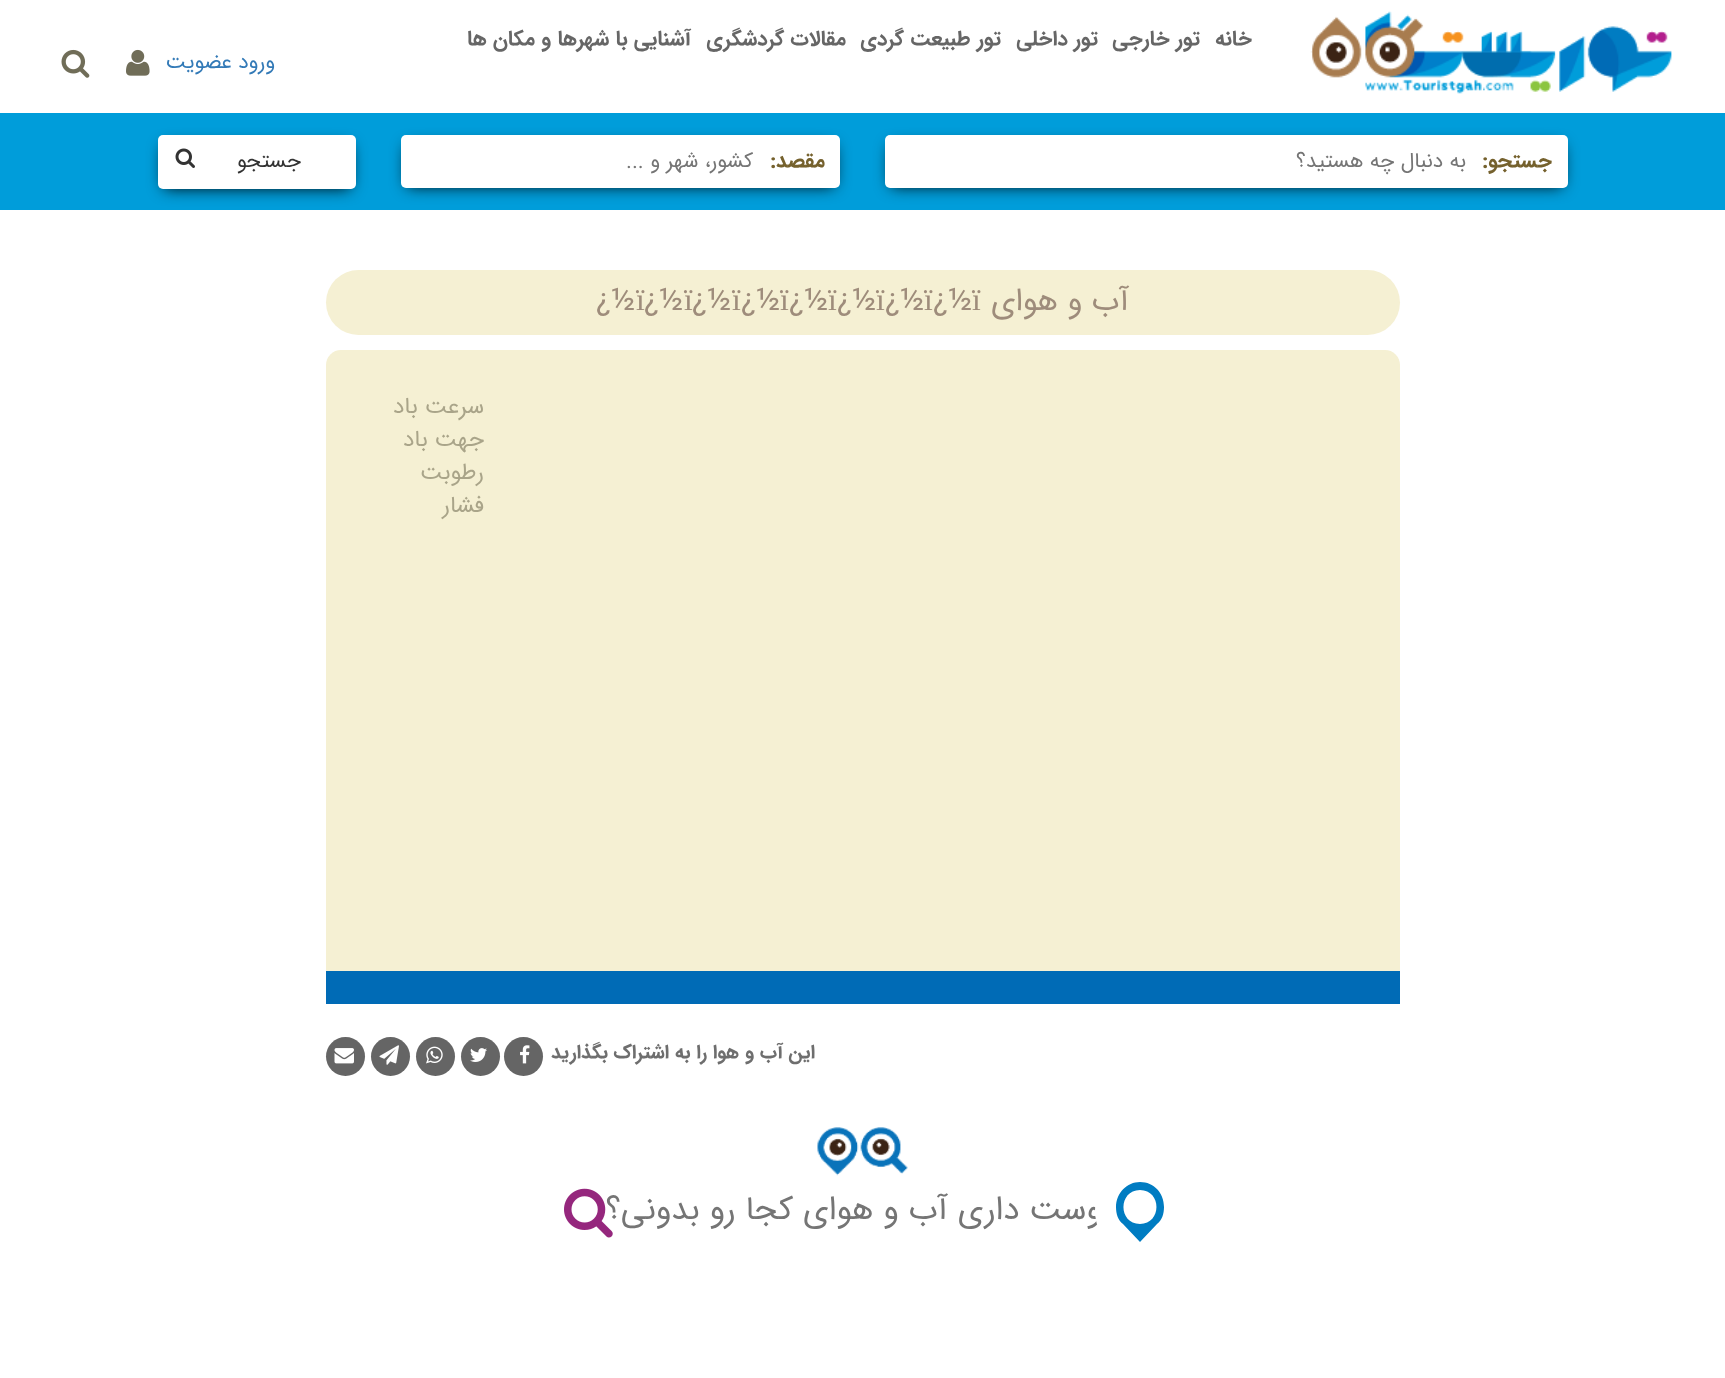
(async () => {
  const canvas = document.querySelector("canvas");
  canvas.width = 1725;
  canvas.height = 1378;
  const ctx = canvas.getContext("2d");
  ctx.miterLimit = 4;
  ctx.fontKerning = "normal";
  async function loadImage(src) {
    const img = new Image();
    img.src = src;
    await img.decode();
    return img;
  }
  let path;

  ctx.fillStyle = "#ffffff";
  ctx.fillRect(0, 0, 1725, 1378);
  ctx.drawImage(await loadImage("img/1.png"), 1310, 11, 362, 83);
  ctx.drawImage(await loadImage("img/2.png"), 126, 49, 24, 27);
  ctx.drawImage(await loadImage("img/3.png"), 61, 49, 29, 29);
  ctx.fillStyle = "#009dda";
  ctx.fillRect(0, 113, 1725, 97);
  ctx.fillStyle = "#000000";
  ctx.filter = "blur(8px)";
  ctx.beginPath();
  ctx.rect(891, 146, 671, 40);
  ctx.fill();
  ctx.filter = "none";
  ctx.fillStyle = "#ffffff";
  ctx.beginPath();
  ctx.roundRect(885, 135, 683, 53, 5);
  ctx.fill();
  ctx.fillStyle = "#000000";
  ctx.filter = "blur(8px)";
  ctx.beginPath();
  ctx.rect(407, 146, 427, 40);
  ctx.fill();
  ctx.filter = "none";
  ctx.fillStyle = "#ffffff";
  ctx.beginPath();
  ctx.roundRect(401, 135, 439, 53, 5);
  ctx.fill();
  ctx.fillStyle = "#000000";
  ctx.filter = "blur(8px)";
  ctx.beginPath();
  ctx.rect(164, 146, 186, 42);
  ctx.fill();
  ctx.filter = "none";
  ctx.fillStyle = "#ffffff";
  ctx.beginPath();
  ctx.roundRect(158, 135, 198, 54, 5);
  ctx.fill();
  ctx.drawImage(await loadImage("img/4.png"), 175, 148, 20, 20);
  ctx.fillStyle = "#f5f0d3";
  ctx.beginPath();
  ctx.roundRect(326, 270, 1074, 65, 32.5);
  ctx.fill();
  ctx.beginPath();
  ctx.roundRect(326, 350, 1074, 654, 15);
  ctx.fill();
  ctx.fillStyle = "#006bb6";
  ctx.fillRect(326, 971, 1074, 33);
  ctx.fillStyle = "#656565";
  ctx.beginPath();
  ctx.arc(523.5, 1056.5, 19.5, 0, Math.PI * 2);
  ctx.fill();
  ctx.drawImage(await loadImage("img/5.png"), 520, 1045, 10, 19);
  ctx.beginPath();
  ctx.arc(480.5, 1056.5, 19.5, 0, Math.PI * 2);
  ctx.fill();
  ctx.drawImage(await loadImage("img/6.png"), 470, 1048, 17, 14);
  ctx.beginPath();
  ctx.arc(435.5, 1056.5, 19.5, 0, Math.PI * 2);
  ctx.fill();
  ctx.drawImage(await loadImage("img/7.png"), 426, 1046, 17, 18);
  ctx.beginPath();
  ctx.arc(390.5, 1056.5, 19.5, 0, Math.PI * 2);
  ctx.fill();
  ctx.drawImage(await loadImage("img/8.png"), 379, 1045, 20, 20);
  ctx.beginPath();
  ctx.arc(345.5, 1056.5, 19.5, 0, Math.PI * 2);
  ctx.fill();
  ctx.drawImage(await loadImage("img/9.png"), 334, 1048, 20, 16);
  ctx.drawImage(await loadImage("img/10.png"), 817, 1127, 91, 49);
  ctx.direction = "rtl";
  ctx.font = "bold 21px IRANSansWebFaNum";
  ctx.fillStyle = "#666666";
  for (const [text, x, y] of [
    ["خانه", 1252, 45],
    ["تور خارجی", 1200, 45],
    ["تور داخلی", 1098, 45],
    ["تور طبیعت گردی", 1001, 45],
    ["مقالات گردشگری", 846, 45],
    ["آشنایی با شهرها و مکان ها", 691, 45],
  ]) {
    ctx.fillText(text, x, y);
  }
  ctx.font = "21px IRANSansWebFaNum";
  ctx.fillStyle = "#337ab7";
  ctx.fillText("ورود", 275, 68);
  ctx.fillText("عضویت", 232, 68);
  ctx.font = "bold 21px IRANSansWebFaNum";
  ctx.fillStyle = "#75612d";
  ctx.fillText("جستجو:", 1552, 167);
  ctx.font = "21px IRANSansWebFaNum";
  ctx.fillStyle = "#757575";
  ctx.fillText("به دنبال چه هستید؟", 1466, 167);
  ctx.font = "bold 21px IRANSansWebFaNum";
  ctx.fillStyle = "#75612d";
  ctx.fillText("مقصد:", 825, 167);
  ctx.font = "21px IRANSansWebFaNum";
  ctx.fillStyle = "#757575";
  ctx.fillText("کشور، شهر و ...", 753, 167);
  ctx.fillStyle = "#333333";
  ctx.fillText("جستجو", 301, 167);
  ctx.font = "31.5px IRANSansWebFaNum";
  ctx.fillStyle = "#9e8c7b";
  ctx.fillText("آب و هوای", 1129, 310);
  ctx.direction = "ltr";
  ctx.font = "31.5px Liberation Serif";
  ctx.fillText("ï", 972, 310);
  ctx.font = "31.5px IRANSansWebFaNum";
  ctx.fillText("¿½", 933, 310);
  ctx.font = "31.5px Liberation Serif";
  ctx.fillText("ï", 924, 310);
  ctx.font = "31.5px IRANSansWebFaNum";
  ctx.fillText("¿½", 885, 310);
  ctx.font = "31.5px Liberation Serif";
  ctx.fillText("ï", 876, 310);
  ctx.font = "31.5px IRANSansWebFaNum";
  ctx.fillText("¿½", 837, 310);
  ctx.font = "31.5px Liberation Serif";
  ctx.fillText("ï", 828, 310);
  ctx.font = "31.5px IRANSansWebFaNum";
  ctx.fillText("¿½", 789, 310);
  ctx.font = "31.5px Liberation Serif";
  ctx.fillText("ï", 780, 310);
  ctx.font = "31.5px IRANSansWebFaNum";
  ctx.fillText("¿½", 741, 310);
  ctx.font = "31.5px Liberation Serif";
  ctx.fillText("ï", 732, 310);
  ctx.font = "31.5px IRANSansWebFaNum";
  ctx.fillText("¿½", 692, 310);
  ctx.font = "31.5px Liberation Serif";
  ctx.fillText("ï", 684, 310);
  ctx.font = "31.5px IRANSansWebFaNum";
  ctx.fillText("¿½", 644, 310);
  ctx.font = "31.5px Liberation Serif";
  ctx.fillText("ï", 636, 310);
  ctx.font = "31.5px IRANSansWebFaNum";
  ctx.fillText("¿½", 596, 310);
  ctx.direction = "rtl";
  ctx.font = "23px IRANSansWebFaNum";
  ctx.fillStyle = "#a9a489";
  for (const [text, x, y] of [
    ["سرعت باد", 484, 413],
    ["جهت باد", 484, 446],
    ["رطوبت", 484, 479],
    ["فشار", 484, 512],
  ]) {
    ctx.fillText(text, x, y);
  }
  ctx.font = "bold 19.5px IRANSansWebFaNum";
  ctx.fillStyle = "#6e6e6e";
  for (const [text, x, y] of [
    ["این", 815, 1058],
    ["آب و هوا", 783, 1058],
    ["را به اشتراک بگذارید", 707, 1058],
  ]) {
    ctx.fillText(text, x, y);
  }
  ctx.font = "33px IRANSansWebFaNum";
  ctx.fillStyle = "#757575";
  ctx.fillText("دوست داری آب و هوای کجا رو بدونی؟", 1118, 1219);
  ctx.fillStyle = "#ffffff";
  ctx.beginPath();
  ctx.arc(1140, 1211, 45, 0, Math.PI * 2);
  ctx.fill();
  ctx.fillStyle = "#007cc2";
  path = new Path2D("M1164 1207C1164 1214 1162 1220 1157 1224L1140 1242L1123 1224C1118 1220 1116 1214 1116 1207C1116 1193 1127 1182 1140 1182C1154 1182 1164 1193 1164 1207ZM1140 1224C1162 1224 1162 1190 1140 1190C1118 1190 1118 1224 1140 1224Z");
  ctx.fill(path);
  ctx.drawImage(await loadImage("img/11.png"), 564, 1188, 49, 50);
})();
